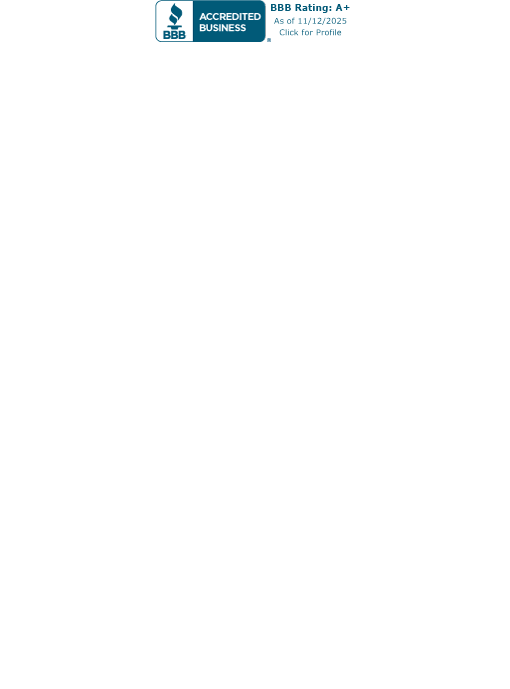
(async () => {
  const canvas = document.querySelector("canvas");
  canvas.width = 510;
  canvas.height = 689;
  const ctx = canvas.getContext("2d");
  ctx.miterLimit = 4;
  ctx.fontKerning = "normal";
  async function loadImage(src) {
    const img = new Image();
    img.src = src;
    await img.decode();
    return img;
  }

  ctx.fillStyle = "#ffffff";
  ctx.fillRect(0, 0, 510, 689);
  ctx.drawImage(await loadImage("img/1.png"), 155, 0, 195, 42);
})();
